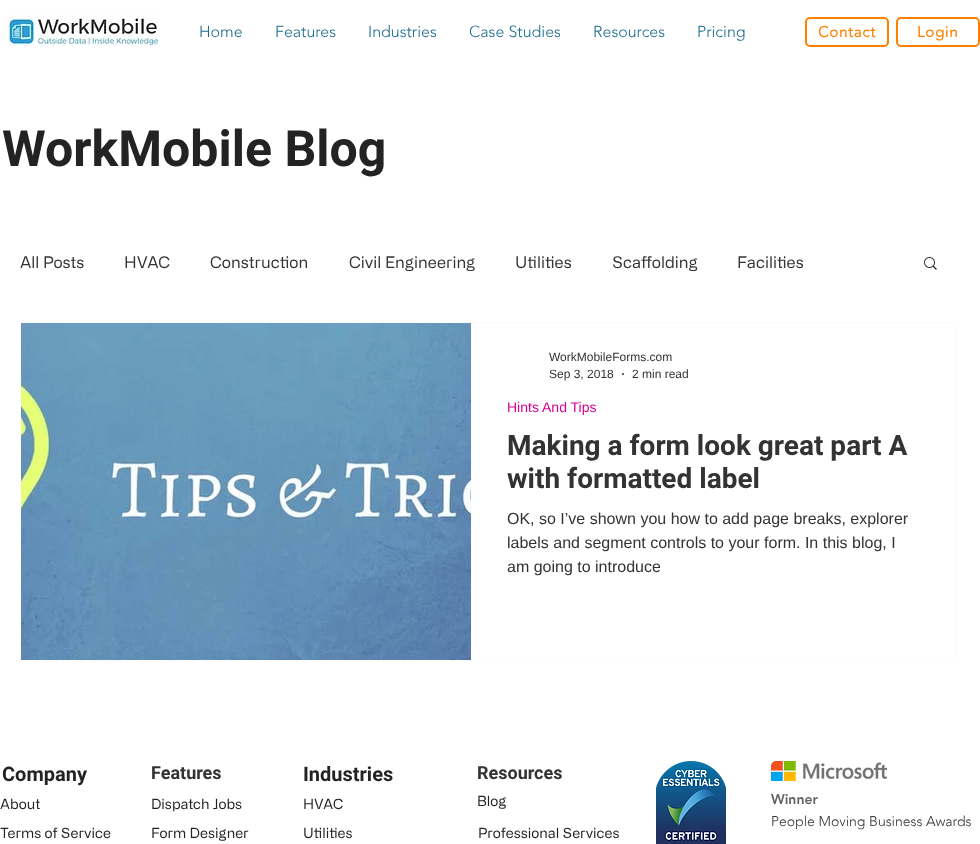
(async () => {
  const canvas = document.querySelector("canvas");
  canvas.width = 980;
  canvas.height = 844;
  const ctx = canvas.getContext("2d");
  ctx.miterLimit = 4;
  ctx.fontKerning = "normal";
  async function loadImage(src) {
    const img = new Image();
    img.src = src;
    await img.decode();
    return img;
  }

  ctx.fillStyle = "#ffffff";
  ctx.fillRect(0, 0, 980, 844);
  ctx.drawImage(await loadImage("img/1.png"), 2, 14, 157, 32);
  ctx.beginPath();
  ctx.roundRect(806, 18, 82, 28, 4);
  ctx.strokeStyle = "#ff8000";
  ctx.lineWidth = 2;
  ctx.stroke();
  ctx.beginPath();
  ctx.roundRect(897, 18, 82, 28, 4);
  ctx.stroke();
  ctx.drawImage(await loadImage("img/2.png"), 924, 257, 13, 13);
  ctx.strokeStyle = "#fbfbfb";
  ctx.lineWidth = 1;
  ctx.strokeRect(20.5, 322.5, 935, 338);
  ctx.drawImage(await loadImage("img/3.png"), 21, 323, 450, 337);
  ctx.fillStyle = "#333333";
  ctx.beginPath();
  ctx.arc(623, 374, 1, 0, Math.PI * 2);
  ctx.fill();
  ctx.drawImage(await loadImage("img/4.png"), 656, 761, 70, 83);
  ctx.drawImage(await loadImage("img/5.png"), 771, 761, 116, 20);
  ctx.font = "300 16px 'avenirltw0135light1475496'";
  ctx.fillStyle = "#1b698f";
  for (const [text, x, y] of [
    ["Home", 199, 37],
    ["Features", 275, 37],
    ["Industries", 368, 37],
    ["Case Studies", 469, 37],
    ["Resources", 593, 37],
    ["Pricing", 697, 37],
  ]) {
    ctx.fillText(text, x, y);
  }
  ctx.letterSpacing = "0.75px";
  ctx.font = "bold 15px 'avenirltw0135light1475496'";
  ctx.fillStyle = "#ff8000";
  ctx.fillText("Contact", 818, 37);
  ctx.fillText("Login", 917, 37);
  ctx.letterSpacing = "0px";
  ctx.font = "bold 50px Roboto";
  ctx.fillStyle = "#242323";
  ctx.fillText("WorkMobile Blog", 2, 166);
  ctx.font = "16px 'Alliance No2'";
  ctx.fillStyle = "#333333";
  for (const [text, x, y] of [
    ["All Posts", 20, 268],
    ["HVAC", 124, 268],
    ["Construction", 210, 268],
    ["Civil Engineering", 349, 268],
    ["Utilities", 515, 268],
    ["Scaffolding", 612, 268],
    ["Facilities", 737, 268],
  ]) {
    ctx.fillText(text, x, y);
  }
  ctx.font = "12px Liberation Sans";
  for (const [text, x, y] of [
    ["WorkMobileForms.com", 549, 361],
    ["Sep 3, 2018", 549, 378],
    ["2 min read", 632, 378],
  ]) {
    ctx.fillText(text, x, y);
  }
  ctx.font = "14px Liberation Sans";
  ctx.fillStyle = "#d30294";
  ctx.fillText("Hints And Tips", 507, 412);
  ctx.font = "bold 28px Roboto";
  ctx.fillStyle = "#333333";
  ctx.fillText("Making a form look great part A", 507, 455);
  ctx.fillText("with formatted label", 507, 488);
  ctx.font = "16px Liberation Sans";
  for (const [text, x, y] of [
    ["OK, so I’ve shown you how to add page breaks, explorer", 507, 524],
    ["labels and segment controls to your form. In this blog, I", 507, 548],
    ["am going to introduce", 507, 572],
  ]) {
    ctx.fillText(text, x, y);
  }
  ctx.font = "bold 20px Roboto";
  ctx.fillStyle = "#242323";
  ctx.fillText("Company", 2, 781);
  ctx.font = "bold 18px Roboto";
  ctx.fillStyle = "#333333";
  ctx.fillText("Features", 151, 779);
  ctx.font = "bold 20px Roboto";
  ctx.fillStyle = "#242323";
  ctx.fillText("Industries", 303, 781);
  ctx.font = "bold 18px Roboto";
  ctx.fillStyle = "#333333";
  ctx.fillText("Resources", 477, 779);
  ctx.font = "14px 'Alliance No2'";
  ctx.fillStyle = "#242323";
  for (const [text, x, y] of [
    ["About", 0, 809],
    ["Dispatch Jobs", 151, 809],
    ["HVAC", 303, 809],
    ["Blog", 477, 806],
  ]) {
    ctx.fillText(text, x, y);
  }
  ctx.font = "900 14px 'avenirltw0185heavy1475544'";
  ctx.fillStyle = "#636262";
  ctx.fillText("Winner", 771, 804);
  ctx.font = "300 14px 'avenirltw0135light1475496'";
  ctx.fillStyle = "#333333";
  ctx.fillText("People Moving Business Awards", 771, 826);
  ctx.font = "14px 'Alliance No2'";
  ctx.fillStyle = "#242323";
  for (const [text, x, y] of [
    ["Terms of Service", 0, 838],
    ["Form Designer", 151, 838],
    ["Utilities", 303, 838],
    ["Professional Services", 478, 838],
  ]) {
    ctx.fillText(text, x, y);
  }
})();
